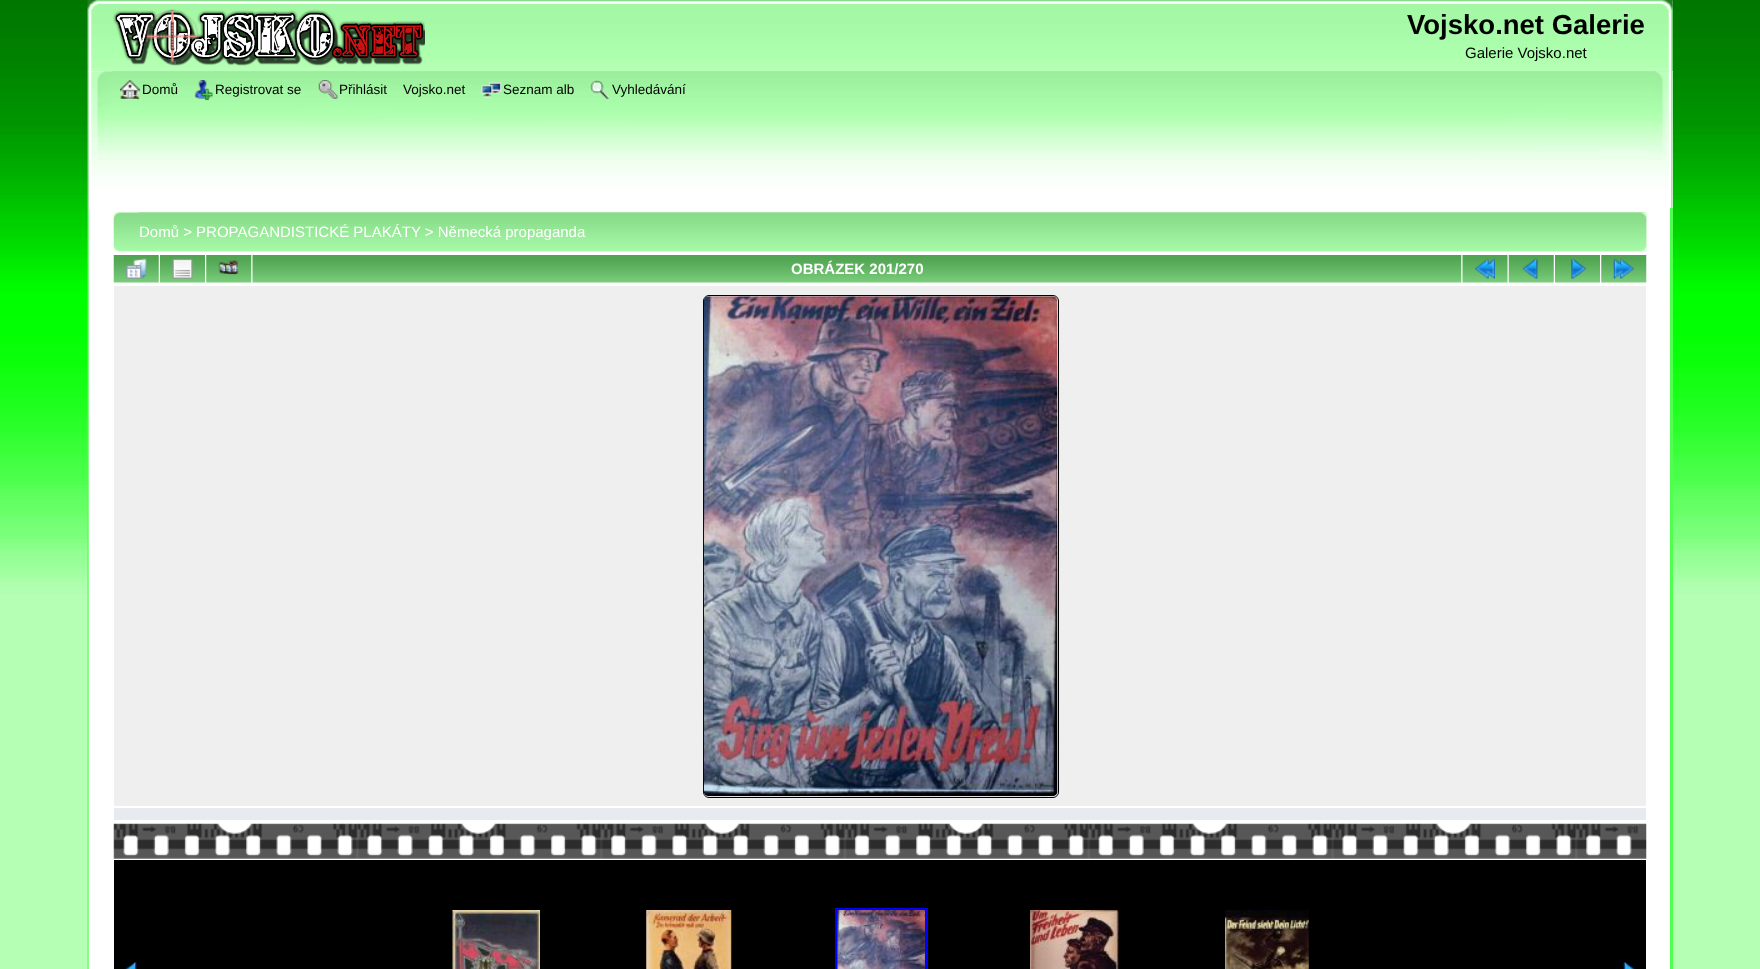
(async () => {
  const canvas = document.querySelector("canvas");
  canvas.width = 1760;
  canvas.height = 969;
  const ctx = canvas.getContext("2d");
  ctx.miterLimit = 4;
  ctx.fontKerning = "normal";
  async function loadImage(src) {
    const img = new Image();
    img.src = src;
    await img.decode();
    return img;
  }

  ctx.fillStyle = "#b5ffb5";
  ctx.fillRect(0, 0, 1760, 969);
  ctx.drawImage(await loadImage("img/1.png"), 0, 0, 1760, 594);
  ctx.drawImage(await loadImage("img/2.png"), 87, 0, 1586, 72);
  ctx.drawImage(await loadImage("img/3.png"), 112, 0, 1561, 71);
  ctx.drawImage(await loadImage("img/4.png"), 113, 9, 312, 57);
  ctx.fillStyle = "#fefefe";
  ctx.fillRect(88, 71, 1585, 138);
  ctx.drawImage(await loadImage("img/5.png"), 87, 71, 1586, 138);
  ctx.drawImage(await loadImage("img/6.png"), 112, 71, 1561, 138);
  ctx.drawImage(await loadImage("img/7.png"), 120, 80, 20, 20);
  ctx.drawImage(await loadImage("img/8.png"), 194, 80, 19, 20);
  ctx.drawImage(await loadImage("img/9.png"), 318, 80, 20, 19);
  ctx.drawImage(await loadImage("img/10.png"), 481, 82, 21, 16);
  ctx.drawImage(await loadImage("img/11.png"), 590, 80, 20, 19);
  ctx.drawImage(await loadImage("img/12.png"), 87, 208, 1583, 761);
  ctx.fillStyle = "#51ff51";
  ctx.fillRect(1670, 208, 3, 761);
  ctx.drawImage(await loadImage("img/13.png"), 113, 212, 1534, 40);
  ctx.drawImage(await loadImage("img/14.png"), 138, 212, 1509, 40);
  ctx.drawImage(await loadImage("img/15.png"), 113, 255, 46, 28);
  ctx.drawImage(await loadImage("img/16.png"), 126, 258, 21, 21);
  ctx.drawImage(await loadImage("img/17.png"), 160, 255, 45, 28);
  ctx.drawImage(await loadImage("img/18.png"), 172, 258, 21, 21);
  ctx.drawImage(await loadImage("img/19.png"), 206, 255, 46, 28);
  ctx.drawImage(await loadImage("img/20.png"), 218, 260, 21, 15);
  ctx.drawImage(await loadImage("img/21.png"), 252, 255, 1210, 28);
  ctx.drawImage(await loadImage("img/22.png"), 1462, 255, 46, 28);
  ctx.drawImage(await loadImage("img/23.png"), 1475, 258, 20, 21);
  ctx.drawImage(await loadImage("img/15.png"), 1508, 255, 46, 28);
  ctx.drawImage(await loadImage("img/24.png"), 1522, 258, 16, 21);
  ctx.drawImage(await loadImage("img/17.png"), 1555, 255, 45, 28);
  ctx.drawImage(await loadImage("img/25.png"), 1571, 258, 16, 21);
  ctx.drawImage(await loadImage("img/19.png"), 1601, 255, 46, 28);
  ctx.drawImage(await loadImage("img/26.png"), 1613, 258, 21, 21);
  ctx.fillStyle = "#efefef";
  ctx.fillRect(114, 286, 1532, 520);
  ctx.beginPath();
  ctx.roundRect(703.5, 295.5, 355, 502, 5.5);
  ctx.strokeStyle = "#000000";
  ctx.stroke();
  ctx.drawImage(await loadImage("img/27.png"), 703, 296, 355, 501);
  ctx.fillStyle = "#e7eaef";
  ctx.fillRect(114, 808, 1532, 12);
  ctx.drawImage(await loadImage("img/28.png"), 113, 823, 1534, 36);
  ctx.fillStyle = "#000000";
  ctx.fillRect(114, 860, 1532, 109);
  ctx.drawImage(await loadImage("img/29.png"), 125, 962, 12, 7);
  ctx.drawImage(await loadImage("img/30.png"), 452, 910, 88, 59);
  ctx.drawImage(await loadImage("img/31.png"), 646, 910, 86, 59);
  ctx.strokeStyle = "#0000ff";
  ctx.lineWidth = 3;
  ctx.strokeRect(836.5, 909.5, 90, 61);
  ctx.drawImage(await loadImage("img/32.png"), 837, 910, 88, 59);
  ctx.drawImage(await loadImage("img/33.png"), 1030, 910, 89, 59);
  ctx.drawImage(await loadImage("img/34.png"), 1225, 910, 84, 59);
  ctx.drawImage(await loadImage("img/35.png"), 1623, 962, 12, 7);
  ctx.font = "bold 27.5px Liberation Sans";
  ctx.fillText("Vojsko.net Galerie", 1407, 34);
  ctx.font = "15px Liberation Sans";
  ctx.fillText("Galerie Vojsko.net", 1465, 58);
  ctx.font = "13.5px Liberation Sans";
  for (const [text, x, y] of [
    ["Domů", 142, 94],
    ["Registrovat se", 215, 94],
    ["Přihlásit", 339, 94],
    ["Vojsko.net", 403, 94],
    ["Seznam alb", 503, 94],
    ["Vyhledávání", 612, 94],
  ]) {
    ctx.fillText(text, x, y);
  }
  ctx.font = "15px Liberation Sans";
  ctx.fillStyle = "#ffffff";
  ctx.fillText("Domů > PROPAGANDISTICKÉ PLAKÁTY > Německá propaganda", 139, 237);
  ctx.font = "bold 15px Liberation Sans";
  ctx.fillText("OBRÁZEK 201/270", 791, 274);
})();
